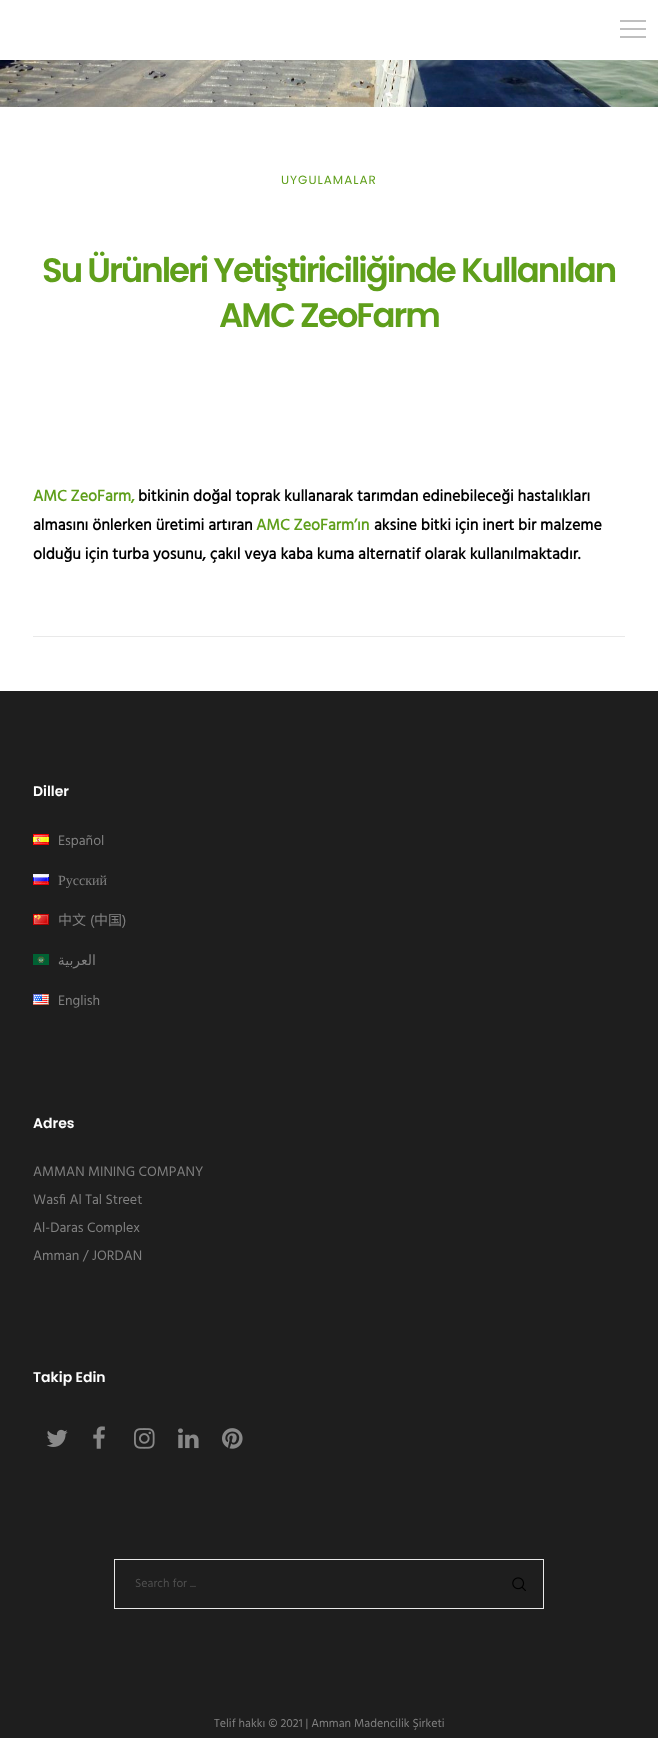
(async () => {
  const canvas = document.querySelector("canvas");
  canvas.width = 658;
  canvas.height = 1738;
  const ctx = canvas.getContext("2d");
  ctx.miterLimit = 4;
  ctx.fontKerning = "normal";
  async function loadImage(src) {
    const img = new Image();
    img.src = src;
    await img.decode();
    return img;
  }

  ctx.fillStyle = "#1e1e1e";
  ctx.fillRect(0, 0, 658, 1738);
  for (const [x, y, w, h, color] of [
    [0, 0, 658, 60, "#ffffff"],
    [620, 20, 26, 2, "#bfbfbf"],
    [620, 28, 26, 2, "#bfbfbf"],
    [620, 36, 26, 2, "#bfbfbf"],
    [0, 107, 658, 584, "#ffffff"],
  ]) {
    ctx.fillStyle = color;
    ctx.fillRect(x, y, w, h);
  }
  ctx.drawImage(await loadImage("img/1.png"), 0, 60, 658, 47);
  ctx.fillStyle = "#e9e9e9";
  ctx.fillRect(33, 636, 592, 1);
  ctx.drawImage(await loadImage("img/2.png"), 33, 834, 16, 11);
  ctx.drawImage(await loadImage("img/3.png"), 33, 874, 16, 11);
  ctx.drawImage(await loadImage("img/4.png"), 33, 914, 16, 11);
  ctx.drawImage(await loadImage("img/5.png"), 33, 954, 16, 11);
  ctx.drawImage(await loadImage("img/6.png"), 33, 994, 16, 11);
  ctx.drawImage(await loadImage("img/7.png"), 46, 1429, 22, 18);
  ctx.drawImage(await loadImage("img/8.png"), 93, 1426, 12, 23);
  ctx.drawImage(await loadImage("img/9.png"), 134, 1428, 21, 21);
  ctx.drawImage(await loadImage("img/10.png"), 178, 1428, 21, 21);
  ctx.drawImage(await loadImage("img/11.png"), 222, 1428, 21, 21);
  ctx.strokeStyle = "#e9e9e9";
  ctx.strokeRect(114.5, 1559.5, 429, 49);
  ctx.drawImage(await loadImage("img/12.png"), 512, 1577, 14, 14);
  ctx.letterSpacing = "1px";
  ctx.font = "12px Poppins";
  ctx.fillStyle = "#5f9f1b";
  ctx.fillText("UYGULAMALAR", 281, 184);
  ctx.letterSpacing = "-2px";
  ctx.font = "600 34px Poppins";
  ctx.fillText("Su Ürünleri Yetiştiriciliğinde Kullanılan", 42, 282);
  ctx.fillText("AMC ZeoFarm", 219, 327);
  ctx.letterSpacing = "0px";
  ctx.font = "bold 16px Hind";
  ctx.fillText("AMC ZeoFarm,", 33, 501);
  ctx.fillStyle = "#000000";
  ctx.fillText("bitkinin doğal toprak kullanarak tarımdan edinebileceği hastalıkları", 138, 501);
  ctx.fillText("almasını önlerken üretimi artıran", 33, 530);
  ctx.fillStyle = "#5f9f1b";
  ctx.fillText("AMC ZeoFarm’ın", 256, 530);
  ctx.fillStyle = "#000000";
  ctx.fillText("aksine bitki için inert bir malzeme", 374, 530);
  ctx.fillText("olduğu için turba yosunu, çakıl veya kaba kuma alternatif olarak kullanılmaktadır.", 33, 559);
  ctx.font = "600 14px Poppins";
  ctx.fillStyle = "#ffffff";
  ctx.fillText("Diller", 33, 796);
  ctx.font = "14px Hind";
  ctx.fillStyle = "#808080";
  ctx.fillText("Español", 58, 845);
  ctx.font = "14px Liberation Serif";
  ctx.fillText("Русский", 58, 885);
  ctx.font = "14px Noto Sans CJK SC";
  ctx.fillText("中文", 58, 925);
  ctx.font = "14px Hind";
  ctx.fillText("(", 90, 925);
  ctx.font = "14px Noto Sans CJK SC";
  ctx.fillText("中国", 94, 925);
  ctx.font = "14px Hind";
  ctx.fillText(")", 122, 925);
  ctx.direction = "rtl";
  ctx.font = "14px DejaVu Sans";
  ctx.fillText("العربية", 96, 965);
  ctx.direction = "ltr";
  ctx.font = "14px Hind";
  ctx.fillText("English", 58, 1005);
  ctx.font = "600 14px Poppins";
  ctx.fillStyle = "#ffffff";
  ctx.fillText("Adres", 33, 1128);
  ctx.font = "14px Hind";
  ctx.fillStyle = "#808080";
  for (const [text, x, y] of [
    ["AMMAN MINING COMPANY", 33, 1176],
    ["Wasfi Al Tal Street", 33, 1204],
    ["Al-Daras Complex", 33, 1232],
    ["Amman / JORDAN", 33, 1260],
  ]) {
    ctx.fillText(text, x, y);
  }
  ctx.font = "600 14px Poppins";
  ctx.fillStyle = "#ffffff";
  ctx.fillText("Takip Edin", 33, 1382);
  ctx.font = "12px Hind";
  ctx.fillStyle = "#4f4f4f";
  ctx.fillText("Search for ...", 135, 1587);
  ctx.fillStyle = "#808080";
  ctx.fillText("Telif hakkı © 2021 | Amman Madencilik Şirketi", 214, 1727);
})();
